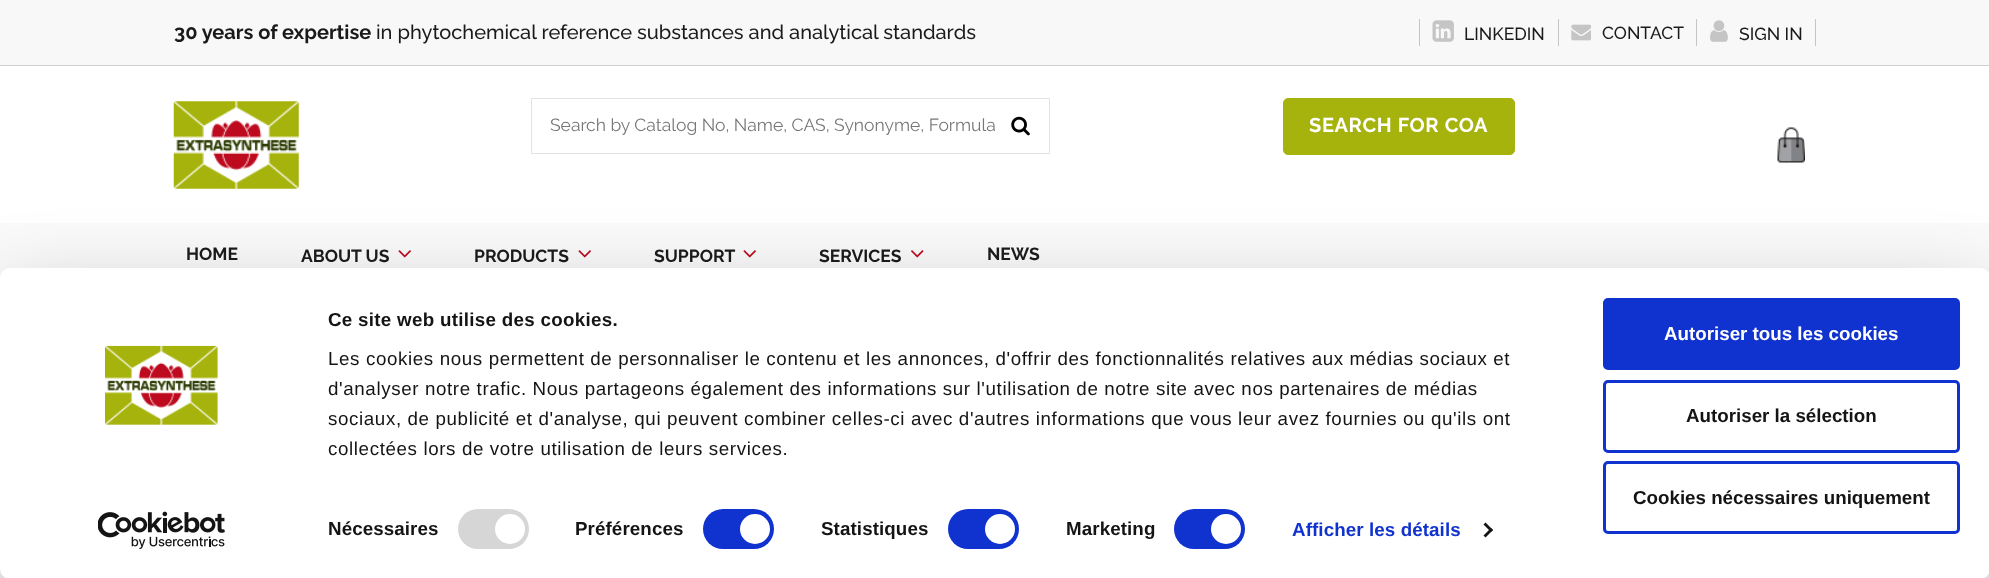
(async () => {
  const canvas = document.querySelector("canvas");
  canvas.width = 1989;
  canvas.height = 578;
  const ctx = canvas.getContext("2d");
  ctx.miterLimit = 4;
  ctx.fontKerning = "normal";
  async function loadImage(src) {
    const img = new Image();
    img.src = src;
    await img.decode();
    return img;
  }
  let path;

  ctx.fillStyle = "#ffffff";
  ctx.fillRect(0, 0, 1989, 578);
  for (const [x, y, w, h, color] of [
    [0, 0, 1989, 65, "#f8f8f8"],
    [0, 65, 1989, 1, "#d0d0d0"],
    [1558, 19, 1, 27, "#c5c5c5"],
    [1419, 19, 1, 27, "#c5c5c5"],
  ]) {
    ctx.fillStyle = color;
    ctx.fillRect(x, y, w, h);
  }
  ctx.drawImage(await loadImage("img/1.png"), 1432, 20, 22, 22);
  ctx.fillRect(1696, 19, 1, 27);
  ctx.drawImage(await loadImage("img/2.png"), 1571, 24, 20, 17);
  ctx.fillRect(1815, 19, 1, 27);
  ctx.drawImage(await loadImage("img/3.png"), 1710, 20, 18, 22);
  ctx.drawImage(await loadImage("img/4.png"), 173, 101, 126, 88);
  ctx.strokeStyle = "#e3e3e3";
  ctx.strokeRect(531.5, 98.5, 518, 55);
  ctx.drawImage(await loadImage("img/5.png"), 1011, 116, 19, 20);
  ctx.fillStyle = "#a6b30c";
  ctx.beginPath();
  ctx.roundRect(1283.5, 98.5, 231, 56, 4.5);
  ctx.fill();
  ctx.strokeStyle = "#a6b30c";
  ctx.stroke();
  ctx.drawImage(await loadImage("img/6.png"), 1777, 127, 28, 36);
  ctx.fillStyle = "#fafafa";
  ctx.fillRect(0, 223, 1989, 55);
  ctx.drawImage(await loadImage("img/7.png"), 398, 250, 13, 8);
  ctx.drawImage(await loadImage("img/7.png"), 578, 250, 13, 8);
  ctx.drawImage(await loadImage("img/7.png"), 743, 250, 13, 8);
  ctx.drawImage(await loadImage("img/8.png"), 911, 250, 13, 8);
  ctx.fillStyle = "rgba(0, 0, 0, 0.3)";
  ctx.filter = "blur(44px)";
  ctx.beginPath();
  ctx.roundRect(0, 305, 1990, 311, 10);
  ctx.fill();
  ctx.filter = "none";
  ctx.fillStyle = "#ffffff";
  ctx.beginPath();
  ctx.roundRect(0, 268, 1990, 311, 10);
  ctx.fill();
  ctx.drawImage(await loadImage("img/9.png"), 105, 345, 113, 80);
  ctx.drawImage(await loadImage("img/10.png"), 98, 511, 127, 38);
  ctx.fillStyle = "#d6d6d6";
  ctx.beginPath();
  ctx.roundRect(458, 509, 71, 40, 20);
  ctx.fill();
  ctx.fillStyle = "#ffffff";
  ctx.beginPath();
  ctx.arc(510, 529, 15, 0, Math.PI * 2);
  ctx.fill();
  ctx.fillStyle = "#1032cf";
  ctx.beginPath();
  ctx.roundRect(703, 509, 71, 40, 20);
  ctx.fill();
  ctx.fillStyle = "#ffffff";
  ctx.beginPath();
  ctx.arc(755, 529, 15, 0, Math.PI * 2);
  ctx.fill();
  ctx.fillStyle = "#1032cf";
  ctx.beginPath();
  ctx.roundRect(948, 509, 71, 40, 20);
  ctx.fill();
  ctx.fillStyle = "#ffffff";
  ctx.beginPath();
  ctx.arc(1000, 529, 15, 0, Math.PI * 2);
  ctx.fill();
  ctx.fillStyle = "#1032cf";
  ctx.beginPath();
  ctx.roundRect(1174, 509, 71, 40, 20);
  ctx.fill();
  ctx.fillStyle = "#ffffff";
  ctx.beginPath();
  ctx.arc(1226, 529, 15, 0, Math.PI * 2);
  ctx.fill();
  ctx.fillStyle = "#141414";
  path = new Path2D("M1485.5 522.5L1493 530L1491 532L1483.5 524.5Z");
  ctx.fill(path);
  path = new Path2D("M1491 528L1493 530L1485.5 537.5L1483.5 535.5Z");
  ctx.fill(path);
  ctx.fillStyle = "#1032cf";
  ctx.beginPath();
  ctx.roundRect(1604.5, 299.5, 354, 69, 3.5);
  ctx.fill();
  ctx.strokeStyle = "#1032cf";
  ctx.lineWidth = 3;
  ctx.stroke();
  ctx.beginPath();
  ctx.roundRect(1604.5, 381.5, 354, 70, 3.5);
  ctx.stroke();
  ctx.beginPath();
  ctx.roundRect(1604.5, 462.5, 354, 70, 3.5);
  ctx.stroke();
  ctx.font = "bold 20px Raleway";
  ctx.fillStyle = "#1a1a1a";
  ctx.fillText("30 years of expertise", 174, 39);
  ctx.font = "500 20px Raleway";
  ctx.fillText("in phytochemical reference substances and analytical standards", 376, 39);
  ctx.font = "500 17.5px Raleway";
  for (const [text, x, y] of [
    ["LINKEDIN", 1464, 40],
    ["CONTACT", 1602, 39],
    ["SIGN IN", 1739, 40],
  ]) {
    ctx.fillText(text, x, y);
  }
  ctx.font = "17.5px Raleway";
  ctx.fillStyle = "#777777";
  ctx.fillText("Search by Catalog No, Name, CAS, Synonyme, Formula", 550, 131);
  ctx.letterSpacing = "0.62px";
  ctx.font = "bold 20px Raleway";
  ctx.fillStyle = "#ffffff";
  ctx.fillText("SEARCH FOR COA", 1309, 132);
  ctx.letterSpacing = "0px";
  ctx.font = "bold 17.5px Raleway";
  ctx.fillStyle = "#1a1a1a";
  for (const [text, x, y] of [
    ["HOME", 186, 260],
    ["ABOUT US", 301, 262],
    ["PRODUCTS", 474, 262],
    ["SUPPORT", 654, 262],
    ["SERVICES", 819, 262],
    ["NEWS", 987, 260],
  ]) {
    ctx.fillText(text, x, y);
  }
  ctx.letterSpacing = "0.3px";
  ctx.font = "bold 18.75px Liberation Sans";
  ctx.fillStyle = "#141414";
  ctx.fillText("Ce site web utilise des cookies.", 328, 326);
  ctx.letterSpacing = "0.62px";
  ctx.font = "18.75px Liberation Sans";
  for (const [text, x, y] of [
    ["Les cookies nous permettent de personnaliser le contenu et les annonces, d'offrir des fonctionnalités relatives aux médias sociaux et", 328, 365],
    ["d'analyser notre trafic. Nous partageons également des informations sur l'utilisation de notre site avec nos partenaires de médias", 328, 395],
    ["sociaux, de publicité et d'analyse, qui peuvent combiner celles-ci avec d'autres informations que vous leur avez fournies ou qu'ils ont", 328, 425],
    ["collectées lors de votre utilisation de leurs services.", 328, 455],
  ]) {
    ctx.fillText(text, x, y);
  }
  ctx.letterSpacing = "0.1px";
  ctx.font = "bold 18.75px Liberation Sans";
  for (const [text, x, y] of [
    ["Nécessaires", 328, 535],
    ["Préférences", 575, 535],
    ["Statistiques", 821, 535],
    ["Marketing", 1066, 535],
  ]) {
    ctx.fillText(text, x, y);
  }
  ctx.fillStyle = "#1032cf";
  ctx.fillText("Afficher les détails", 1292, 536);
  ctx.letterSpacing = "0px";
  ctx.fillStyle = "#ffffff";
  ctx.fillText("Autoriser tous les cookies", 1664, 340);
  ctx.fillStyle = "#141414";
  ctx.fillText("Autoriser la sélection", 1686, 422);
  ctx.fillText("Cookies nécessaires uniquement", 1633, 504);
})();
